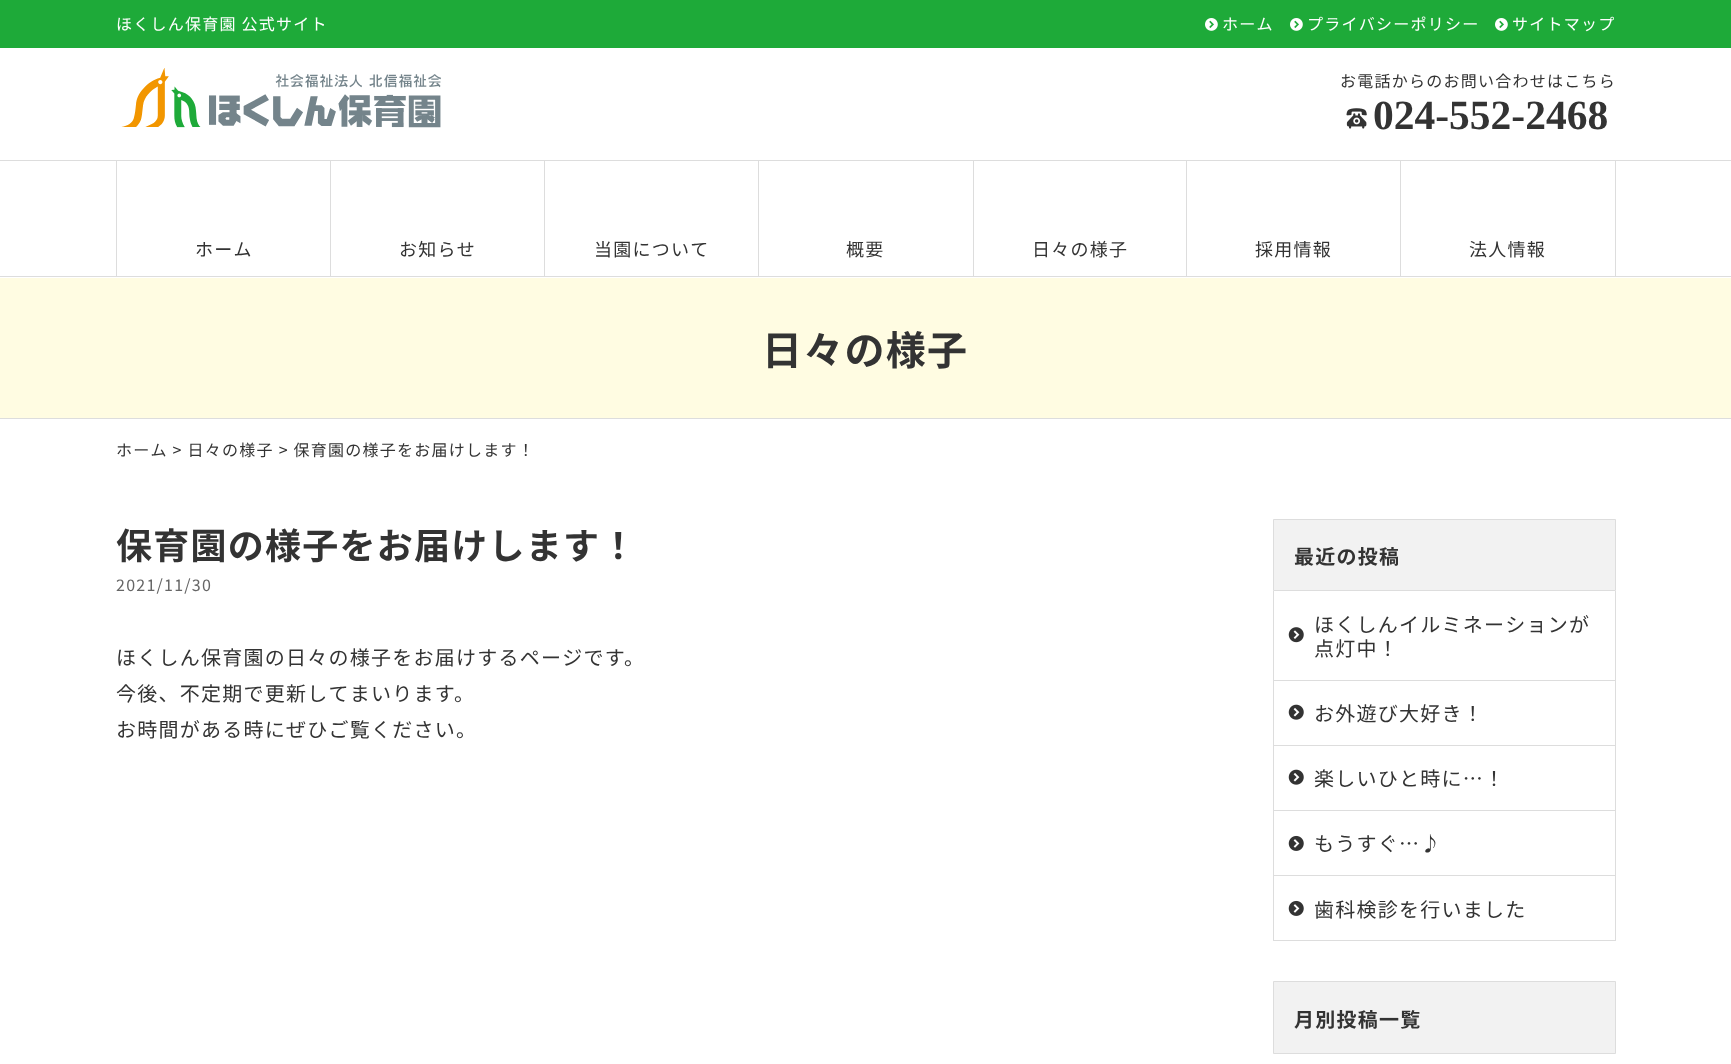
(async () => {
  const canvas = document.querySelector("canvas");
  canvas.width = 1731;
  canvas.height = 1064;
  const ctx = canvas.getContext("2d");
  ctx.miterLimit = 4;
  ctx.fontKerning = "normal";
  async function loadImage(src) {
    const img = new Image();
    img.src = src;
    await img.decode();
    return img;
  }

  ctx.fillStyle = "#ffffff";
  ctx.fillRect(0, 0, 1731, 1064);
  ctx.fillStyle = "#1eaa39";
  ctx.fillRect(0, 0, 1731, 48);
  ctx.drawImage(await loadImage("img/1.png"), 1205, 18, 13, 13);
  ctx.drawImage(await loadImage("img/1.png"), 1290, 18, 13, 13);
  ctx.drawImage(await loadImage("img/1.png"), 1495, 18, 13, 13);
  ctx.drawImage(await loadImage("img/2.png"), 121, 68, 320, 60);
  ctx.drawImage(await loadImage("img/3.png"), 1346, 108, 21, 21);
  for (const [x, y, w, h, color] of [
    [0, 160, 1731, 1, "#dddddd"],
    [0, 276, 1731, 1, "#dddddd"],
    [116, 161, 1, 115, "#dddddd"],
    [330, 161, 1, 115, "#dddddd"],
    [544, 161, 1, 115, "#dddddd"],
    [758, 161, 1, 115, "#dddddd"],
    [973, 161, 1, 115, "#dddddd"],
    [1186, 161, 1, 115, "#dddddd"],
    [1400, 161, 1, 115, "#dddddd"],
    [1615, 161, 1, 115, "#dddddd"],
    [0, 278, 1731, 140, "#fffce2"],
    [0, 418, 1731, 1, "#dddddd"],
  ]) {
    ctx.fillStyle = color;
    ctx.fillRect(x, y, w, h);
  }
  ctx.fillStyle = "#f2f2f2";
  ctx.beginPath();
  ctx.rect(1273.5, 519.5, 342, 71);
  ctx.fill();
  ctx.strokeStyle = "#dddddd";
  ctx.stroke();
  for (const [x, y, w, h, color] of [
    [1615, 591, 1, 350, "#dddddd"],
    [1273, 680, 343, 1, "#dddddd"],
    [1273, 591, 1, 90, "#dddddd"],
  ]) {
    ctx.fillStyle = color;
    ctx.fillRect(x, y, w, h);
  }
  ctx.drawImage(await loadImage("img/4.png"), 1288, 627, 16, 16);
  ctx.fillRect(1273, 745, 343, 1);
  ctx.fillRect(1273, 681, 1, 65);
  ctx.drawImage(await loadImage("img/5.png"), 1288, 704, 16, 16);
  ctx.fillRect(1273, 810, 343, 1);
  ctx.fillRect(1273, 746, 1, 65);
  ctx.drawImage(await loadImage("img/5.png"), 1288, 769, 16, 16);
  ctx.fillRect(1273, 875, 343, 1);
  ctx.fillRect(1273, 811, 1, 65);
  ctx.drawImage(await loadImage("img/6.png"), 1288, 835, 16, 16);
  ctx.fillRect(1273, 940, 343, 1);
  ctx.fillRect(1273, 876, 1, 65);
  ctx.drawImage(await loadImage("img/6.png"), 1288, 900, 16, 16);
  ctx.fillStyle = "#f2f2f2";
  ctx.beginPath();
  ctx.rect(1273.5, 981.5, 342, 72);
  ctx.fill();
  ctx.stroke();
  ctx.letterSpacing = "1.25px";
  ctx.font = "16px Noto Sans JP";
  ctx.fillStyle = "#ffffff";
  for (const [text, x, y] of [
    ["ほくしん保育園 公式サイト", 116, 30],
    ["ホーム", 1222, 30],
    ["プライバシーポリシー", 1307, 30],
    ["サイトマップ", 1512, 30],
  ]) {
    ctx.fillText(text, x, y);
  }
  ctx.fillStyle = "#333333";
  ctx.fillText("お電話からのお問い合わせはこちら", 1340, 87);
  ctx.letterSpacing = "0px";
  ctx.font = "bold 41.5px Liberation Serif";
  ctx.fillText("024-552-2468", 1373, 129);
  ctx.letterSpacing = "1.25px";
  ctx.font = "18px Noto Sans JP";
  for (const [text, x, y] of [
    ["ホーム", 195, 256],
    ["お知らせ", 399, 256],
    ["当園について", 594, 256],
    ["概要", 846, 256],
    ["日々の様子", 1032, 256],
    ["採用情報", 1255, 256],
    ["法人情報", 1469, 256],
  ]) {
    ctx.fillText(text, x, y);
  }
  ctx.font = "bold 40px Noto Sans JP";
  ctx.fillText("日々の様子", 762, 365);
  ctx.font = "16px Noto Sans JP";
  ctx.fillText("ホーム > 日々の様子 > 保育園の様子をお届けします！", 116, 456);
  ctx.font = "bold 36px Noto Sans JP";
  ctx.fillText("保育園の様子をお届けします！", 116, 559);
  ctx.font = "16px Noto Sans JP";
  ctx.fillStyle = "#666666";
  ctx.fillText("2021/11/30", 116, 591);
  ctx.font = "20px Noto Sans JP";
  ctx.fillStyle = "#333333";
  for (const [text, x, y] of [
    ["ほくしん保育園の日々の様子をお届けするページです。", 116, 665],
    ["今後、不定期で更新してまいります。", 116, 701],
    ["お時間がある時にぜひご覧ください。", 116, 737],
  ]) {
    ctx.fillText(text, x, y);
  }
  ctx.font = "bold 20px Noto Sans JP";
  ctx.fillText("最近の投稿", 1294, 564);
  ctx.font = "20px Noto Sans JP";
  for (const [text, x, y] of [
    ["ほくしんイルミネーションが", 1314, 632],
    ["点灯中！", 1314, 656],
    ["お外遊び大好き！", 1314, 721],
    ["楽しいひと時に…！", 1314, 786],
    ["もうすぐ…♪", 1314, 851],
    ["歯科検診を行いました", 1314, 917],
  ]) {
    ctx.fillText(text, x, y);
  }
  ctx.font = "bold 20px Noto Sans JP";
  ctx.fillText("月別投稿一覧", 1294, 1027);
})();
